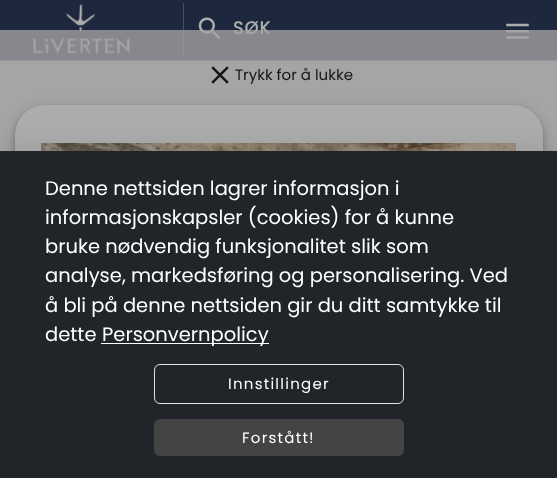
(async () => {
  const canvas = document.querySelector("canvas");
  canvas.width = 557;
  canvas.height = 478;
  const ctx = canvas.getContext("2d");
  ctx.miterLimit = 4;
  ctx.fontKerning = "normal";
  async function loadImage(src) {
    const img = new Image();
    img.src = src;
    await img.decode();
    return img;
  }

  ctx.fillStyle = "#adadad";
  ctx.fillRect(0, 0, 557, 478);
  ctx.fillStyle = "#1d283f";
  ctx.fillRect(0, 0, 557, 60);
  ctx.save();
  ctx.beginPath();
  ctx.rect(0, 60, 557, 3);
  ctx.clip();
  ctx.fillStyle = "rgba(0, 0, 0, 0.12)";
  ctx.filter = "blur(2px)";
  ctx.beginPath();
  ctx.rect(0, 1, 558, 60);
  ctx.fill();
  ctx.filter = "none";
  ctx.restore();
  ctx.save();
  ctx.beginPath();
  ctx.rect(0, 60, 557, 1);
  ctx.clip();
  ctx.fillStyle = "rgba(0, 0, 0, 0.14)";
  ctx.filter = "blur(0.5px)";
  ctx.beginPath();
  ctx.rect(0, 1, 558, 60);
  ctx.fill();
  ctx.filter = "none";
  ctx.restore();
  ctx.save();
  ctx.beginPath();
  ctx.rect(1, 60, 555, 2);
  ctx.clip();
  ctx.fillStyle = "rgba(0, 0, 0, 0.2)";
  ctx.filter = "blur(0.5px)";
  ctx.beginPath();
  ctx.rect(1, 4, 555, 57);
  ctx.fill();
  ctx.filter = "none";
  ctx.restore();
  ctx.drawImage(await loadImage("img/1.png"), 31, 4, 99, 50);
  ctx.fillStyle = "#485061";
  ctx.fillRect(183, 3, 1, 56);
  ctx.drawImage(await loadImage("img/2.png"), 198, 17, 23, 23);
  ctx.drawImage(await loadImage("img/3.png"), 506, 23, 23, 16);
  ctx.letterSpacing = "1.25px";
  ctx.font = "bold 17.5px Poppins";
  ctx.fillStyle = "#adadad";
  ctx.fillText("SØK", 233, 34);
  ctx.fillStyle = "rgba(163, 163, 163, 0.79)";
  ctx.fillRect(0, 30, 557, 121);
  ctx.drawImage(await loadImage("img/4.png"), 211, 66, 18, 18);
  ctx.letterSpacing = "0px";
  ctx.font = "15px Poppins";
  ctx.fillStyle = "#161616";
  ctx.fillText("Trykk for å lukke", 235, 80);
  ctx.fillStyle = "rgba(0, 0, 0, 0.12)";
  ctx.filter = "blur(6px)";
  ctx.beginPath();
  ctx.roundRect(15, 106, 528, 359, 30);
  ctx.fill();
  ctx.filter = "none";
  ctx.fillStyle = "rgba(0, 0, 0, 0.14)";
  ctx.filter = "blur(3px)";
  ctx.beginPath();
  ctx.roundRect(15, 110, 528, 359, 30);
  ctx.fill();
  ctx.filter = "none";
  ctx.fillStyle = "rgba(0, 0, 0, 0.2)";
  ctx.filter = "blur(2.5px)";
  ctx.beginPath();
  ctx.roundRect(16, 109, 525, 356, 29);
  ctx.fill();
  ctx.filter = "none";
  ctx.fillStyle = "#adadad";
  ctx.beginPath();
  ctx.roundRect(15, 105, 528, 359, [30, 30, 0, 0]);
  ctx.fill();
  ctx.drawImage(await loadImage("img/5.png"), 41, 143, 475, 8);
  ctx.fillStyle = "rgba(0, 0, 0, 0.12)";
  ctx.filter = "blur(19px)";
  ctx.beginPath();
  ctx.rect(-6, 153, 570, 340);
  ctx.fill();
  ctx.filter = "none";
  ctx.fillStyle = "#212529";
  ctx.fillRect(0, 151, 557, 327);
  ctx.font = "19.5px Poppins";
  ctx.fillStyle = "#ffffff";
  for (const [text, x, y] of [
    ["Denne nettsiden lagrer informasjon i", 45, 195],
    ["informasjonskapsler (cookies) for å kunne", 45, 224],
    ["bruke nødvendig funksjonalitet slik som", 45, 253],
    ["analyse, markedsføring og personalisering. Ved", 45, 282],
    ["å bli på denne nettsiden gir du ditt samtykke til", 45, 312],
    ["dette", 45, 341],
  ]) {
    ctx.fillText(text, x, y);
  }
  ctx.fillRect(101, 343, 168, 1);
  ctx.fillText("Personvernpolicy", 102, 341);
  ctx.beginPath();
  ctx.roundRect(154.5, 364.5, 249, 39, 5.5);
  ctx.strokeStyle = "#dee2e6";
  ctx.stroke();
  ctx.letterSpacing = "1.25px";
  ctx.font = "15px Poppins";
  ctx.fillText("Innstillinger", 228, 389);
  ctx.fillStyle = "#444444";
  ctx.beginPath();
  ctx.roundRect(154, 419, 250, 37, 6);
  ctx.fill();
  ctx.fillStyle = "#ffffff";
  ctx.fillText("Forstått!", 242, 443);
})();
